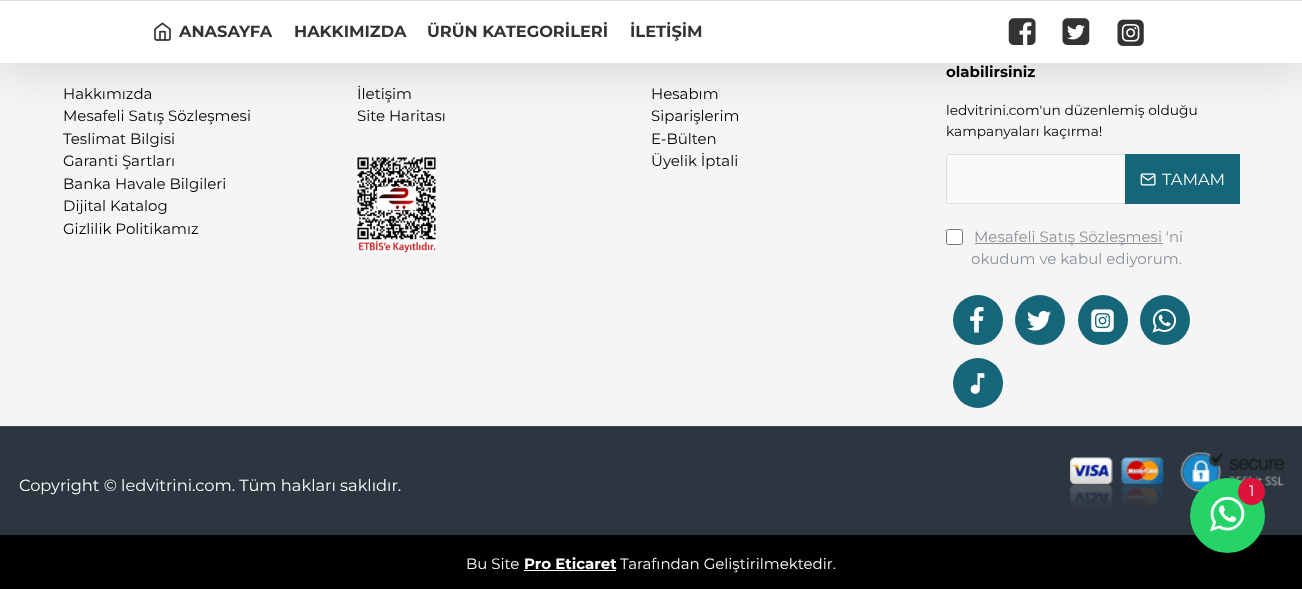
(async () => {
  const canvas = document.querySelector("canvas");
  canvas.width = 1302;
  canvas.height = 589;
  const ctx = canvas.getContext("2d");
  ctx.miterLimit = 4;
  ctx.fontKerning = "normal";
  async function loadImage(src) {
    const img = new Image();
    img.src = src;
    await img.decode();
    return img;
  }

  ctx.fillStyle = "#2c3640";
  ctx.fillRect(0, 0, 1302, 589);
  ctx.fillStyle = "#f5f5f5";
  ctx.fillRect(0, 63, 1302, 363);
  ctx.fillStyle = "rgba(0, 0, 0, 0.1)";
  ctx.filter = "blur(19px)";
  ctx.beginPath();
  ctx.rect(0, 13, 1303, 62);
  ctx.fill();
  ctx.filter = "none";
  ctx.fillStyle = "#ffffff";
  ctx.fillRect(0, 1, 1302, 62);
  ctx.fillStyle = "#dddddd";
  ctx.fillRect(0, 0, 1302, 1);
  ctx.drawImage(await loadImage("img/1.png"), 154, 22, 17, 19);
  ctx.drawImage(await loadImage("img/2.png"), 1008, 18, 28, 27);
  ctx.drawImage(await loadImage("img/3.png"), 1062, 18, 28, 27);
  ctx.drawImage(await loadImage("img/4.png"), 1117, 19, 27, 27);
  ctx.drawImage(await loadImage("img/5.png"), 357, 157, 79, 96);
  ctx.fillStyle = "#fafafa";
  ctx.beginPath();
  ctx.roundRect(946.5, 154.5, 293, 49, 2);
  ctx.fill();
  ctx.strokeStyle = "#dddddd";
  ctx.stroke();
  ctx.fillStyle = "#146678";
  ctx.fillRect(1125, 154, 115, 50);
  ctx.drawImage(await loadImage("img/6.png"), 1140, 173, 16, 13);
  ctx.fillStyle = "#ffffff";
  ctx.beginPath();
  ctx.roundRect(946.5, 229.5, 16, 15, 2);
  ctx.fill();
  ctx.strokeStyle = "#767676";
  ctx.stroke();
  ctx.fillStyle = "#8b9198";
  ctx.fillRect(975, 243, 188, 1);
  ctx.fillStyle = "#146678";
  ctx.beginPath();
  ctx.arc(978, 320, 25, 0, Math.PI * 2);
  ctx.fill();
  ctx.drawImage(await loadImage("img/7.png"), 970, 307, 14, 26);
  ctx.beginPath();
  ctx.arc(1040, 320, 25, 0, Math.PI * 2);
  ctx.fill();
  ctx.drawImage(await loadImage("img/8.png"), 1027, 310, 24, 21);
  ctx.beginPath();
  ctx.arc(1103, 320, 25, 0, Math.PI * 2);
  ctx.fill();
  ctx.drawImage(await loadImage("img/9.png"), 1091, 309, 23, 23);
  ctx.beginPath();
  ctx.arc(1165, 320, 25, 0, Math.PI * 2);
  ctx.fill();
  ctx.drawImage(await loadImage("img/10.png"), 1152, 308, 25, 25);
  ctx.beginPath();
  ctx.arc(978, 383, 25, 0, Math.PI * 2);
  ctx.fill();
  ctx.drawImage(await loadImage("img/11.png"), 970, 373, 15, 21);
  ctx.fillStyle = "#3a4754";
  ctx.fillRect(0, 426, 1302, 1);
  ctx.drawImage(await loadImage("img/12.png"), 1070, 452, 214, 56);
  ctx.fillStyle = "#000000";
  ctx.fillRect(0, 535, 1302, 54);
  ctx.fillStyle = "#ffffff";
  ctx.fillRect(524, 570, 92, 1);
  ctx.fillStyle = "#25d366";
  ctx.beginPath();
  ctx.arc(1227.5, 515.5, 37.5, 0, Math.PI * 2);
  ctx.fill();
  ctx.drawImage(await loadImage("img/13.png"), 1210, 496, 35, 36);
  ctx.fillStyle = "#dc143c";
  ctx.beginPath();
  ctx.arc(1251.5, 491.5, 13.5, 0, Math.PI * 2);
  ctx.fill();
  ctx.font = "bold 16.25px Montserrat";
  ctx.fillStyle = "#333333";
  for (const [text, x, y] of [
    ["ANASAYFA", 179, 37],
    ["HAKKIMIZDA", 294, 37],
    ["ÜRÜN KATEGORİLERİ", 427, 37],
    ["İLETİŞİM", 630, 37],
  ]) {
    ctx.fillText(text, x, y);
  }
  ctx.font = "15px Montserrat";
  ctx.fillStyle = "#000000";
  for (const [text, x, y] of [
    ["Hakkımızda", 63, 99],
    ["Mesafeli Satış Sözleşmesi", 63, 121],
    ["Teslimat Bilgisi", 63, 144],
    ["Garanti Şartları", 63, 166],
    ["Banka Havale Bilgileri", 63, 189],
    ["Dijital Katalog", 63, 211],
    ["Gizlilik Politikamız", 63, 234],
    ["İletişim", 357, 99],
    ["Site Haritası", 357, 121],
    ["Hesabım", 651, 99],
    ["Siparişlerim", 651, 121],
    ["E-Bülten", 651, 144],
    ["Üyelik İptali", 651, 166],
  ]) {
    ctx.fillText(text, x, y);
  }
  ctx.font = "bold 15px Montserrat";
  ctx.fillText("olabilirsiniz", 946, 77);
  ctx.font = "13.75px Montserrat";
  ctx.fillText("ledvitrini.com'un düzenlemiş olduğu", 946, 115);
  ctx.fillText("kampanyaları kaçırma!", 946, 136);
  ctx.font = "16.25px Montserrat";
  ctx.fillStyle = "#ffffff";
  ctx.fillText("TAMAM", 1162, 185);
  ctx.font = "15px Montserrat";
  ctx.fillStyle = "#8b9198";
  ctx.fillText("Mesafeli Satış Sözleşmesi 'ni", 974, 242);
  ctx.fillText("okudum ve kabul ediyorum.", 971, 264);
  ctx.font = "16.25px Montserrat";
  ctx.fillStyle = "#ffffff";
  ctx.fillText("Copyright © ledvitrini.com. Tüm hakları saklıdır.", 19, 491);
  ctx.font = "15px Montserrat";
  ctx.fillText("Bu Site", 466, 569);
  ctx.font = "bold 15px Montserrat";
  ctx.fillText("Pro Eticaret", 524, 569);
  ctx.font = "15px Montserrat";
  ctx.fillText("Tarafından Geliştirilmektedir.", 620, 569);
  ctx.fillText("1", 1249, 496);
})();
